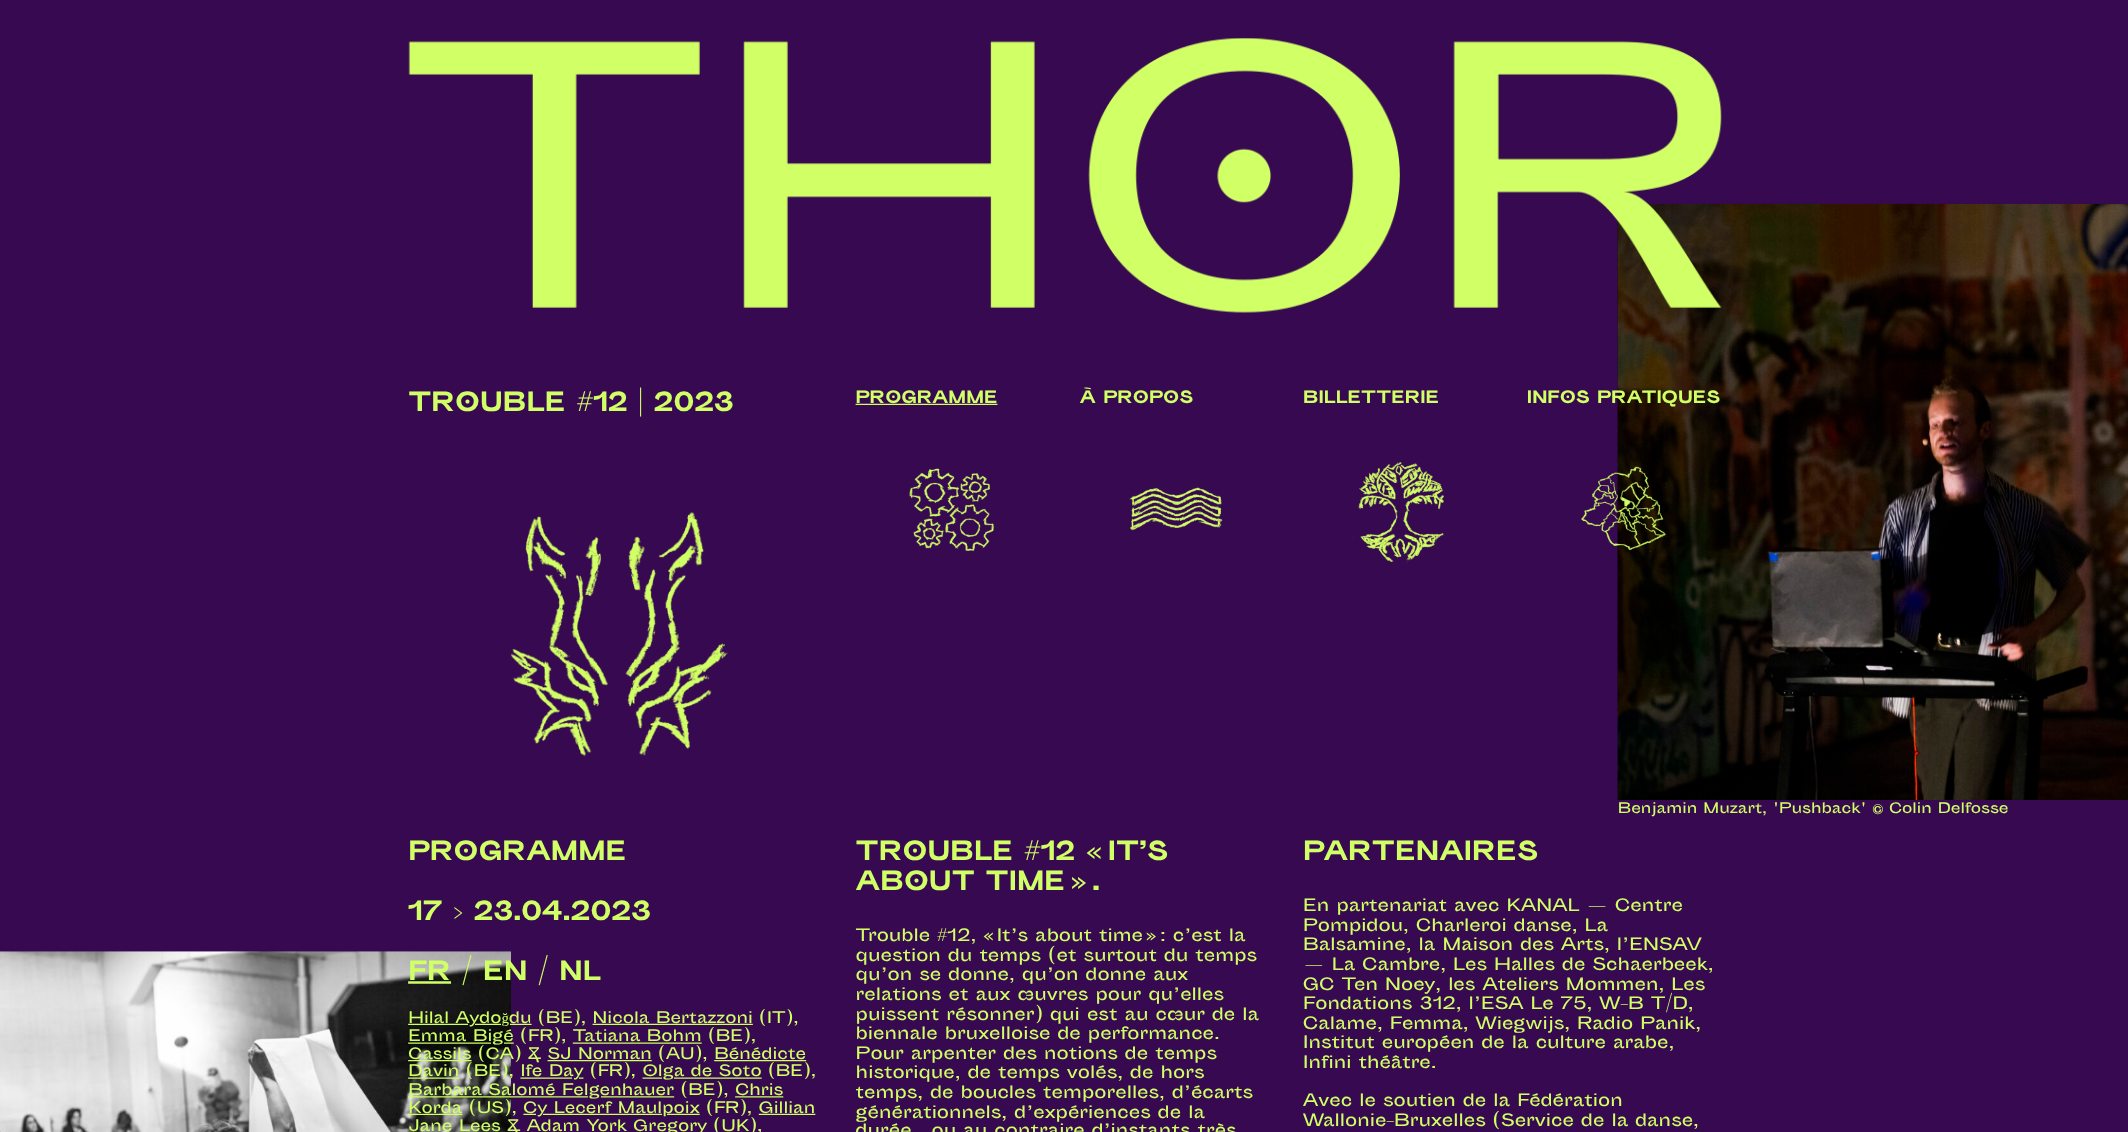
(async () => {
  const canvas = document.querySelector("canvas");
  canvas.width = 2128;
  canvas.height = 1132;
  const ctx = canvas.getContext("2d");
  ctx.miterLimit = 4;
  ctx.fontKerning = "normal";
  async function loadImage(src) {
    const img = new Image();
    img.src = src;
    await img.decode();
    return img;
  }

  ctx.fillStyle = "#ffffff";
  ctx.fillRect(0, 0, 2128, 1132);
  ctx.drawImage(await loadImage("img/1.png"), 0, 0, 2128, 1132);
})();
